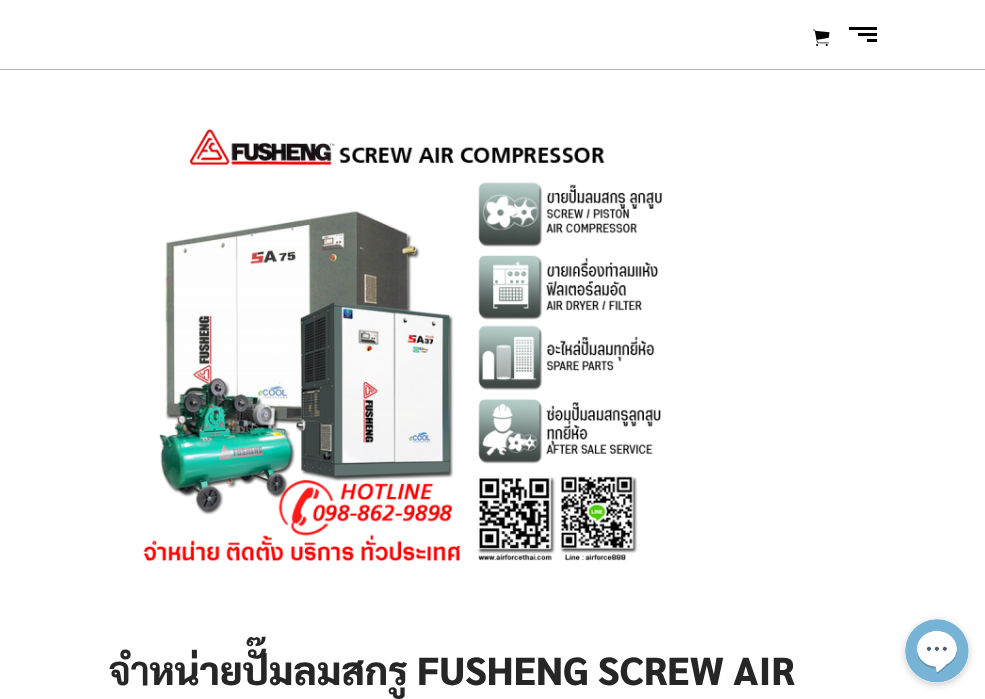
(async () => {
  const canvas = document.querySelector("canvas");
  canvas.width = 985;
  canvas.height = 699;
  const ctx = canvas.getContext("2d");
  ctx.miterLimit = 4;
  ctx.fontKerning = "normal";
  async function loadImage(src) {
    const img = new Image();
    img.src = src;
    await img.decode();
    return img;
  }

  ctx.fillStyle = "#ffffff";
  ctx.fillRect(0, 0, 985, 699);
  ctx.fillStyle = "#b2b2b2";
  ctx.fillRect(0, 69, 985, 1);
  ctx.drawImage(await loadImage("img/1.png"), 813, 29, 17, 17);
  for (const [x, y, w, h, color] of [
    [849, 27, 28, 3, "#000000"],
    [858, 33, 19, 3, "#000000"],
    [867, 39, 10, 3, "#000000"],
  ]) {
    ctx.fillStyle = color;
    ctx.fillRect(x, y, w, h);
  }
  ctx.drawImage(await loadImage("img/2.png"), 143, 128, 519, 433);
  ctx.fillStyle = "rgba(0, 0, 0, 0.2)";
  ctx.filter = "blur(3.5px)";
  ctx.beginPath();
  ctx.roundRect(905, 621, 64, 64, 32);
  ctx.fill();
  ctx.filter = "none";
  ctx.fillStyle = "#ffffff";
  ctx.beginPath();
  ctx.arc(937, 651, 32, 0, Math.PI * 2);
  ctx.fill();
  ctx.drawImage(await loadImage("img/3.png"), 905, 619, 64, 64);
  ctx.letterSpacing = "-0.2px";
  ctx.wordSpacing = "0.5px";
  ctx.font = "800 39px Sarabun";
  ctx.fillStyle = "#262626";
  ctx.fillText("จำหน่ายปั๊มลมสกรู FUSHENG SCREW AIR", 109, 685);
})();
